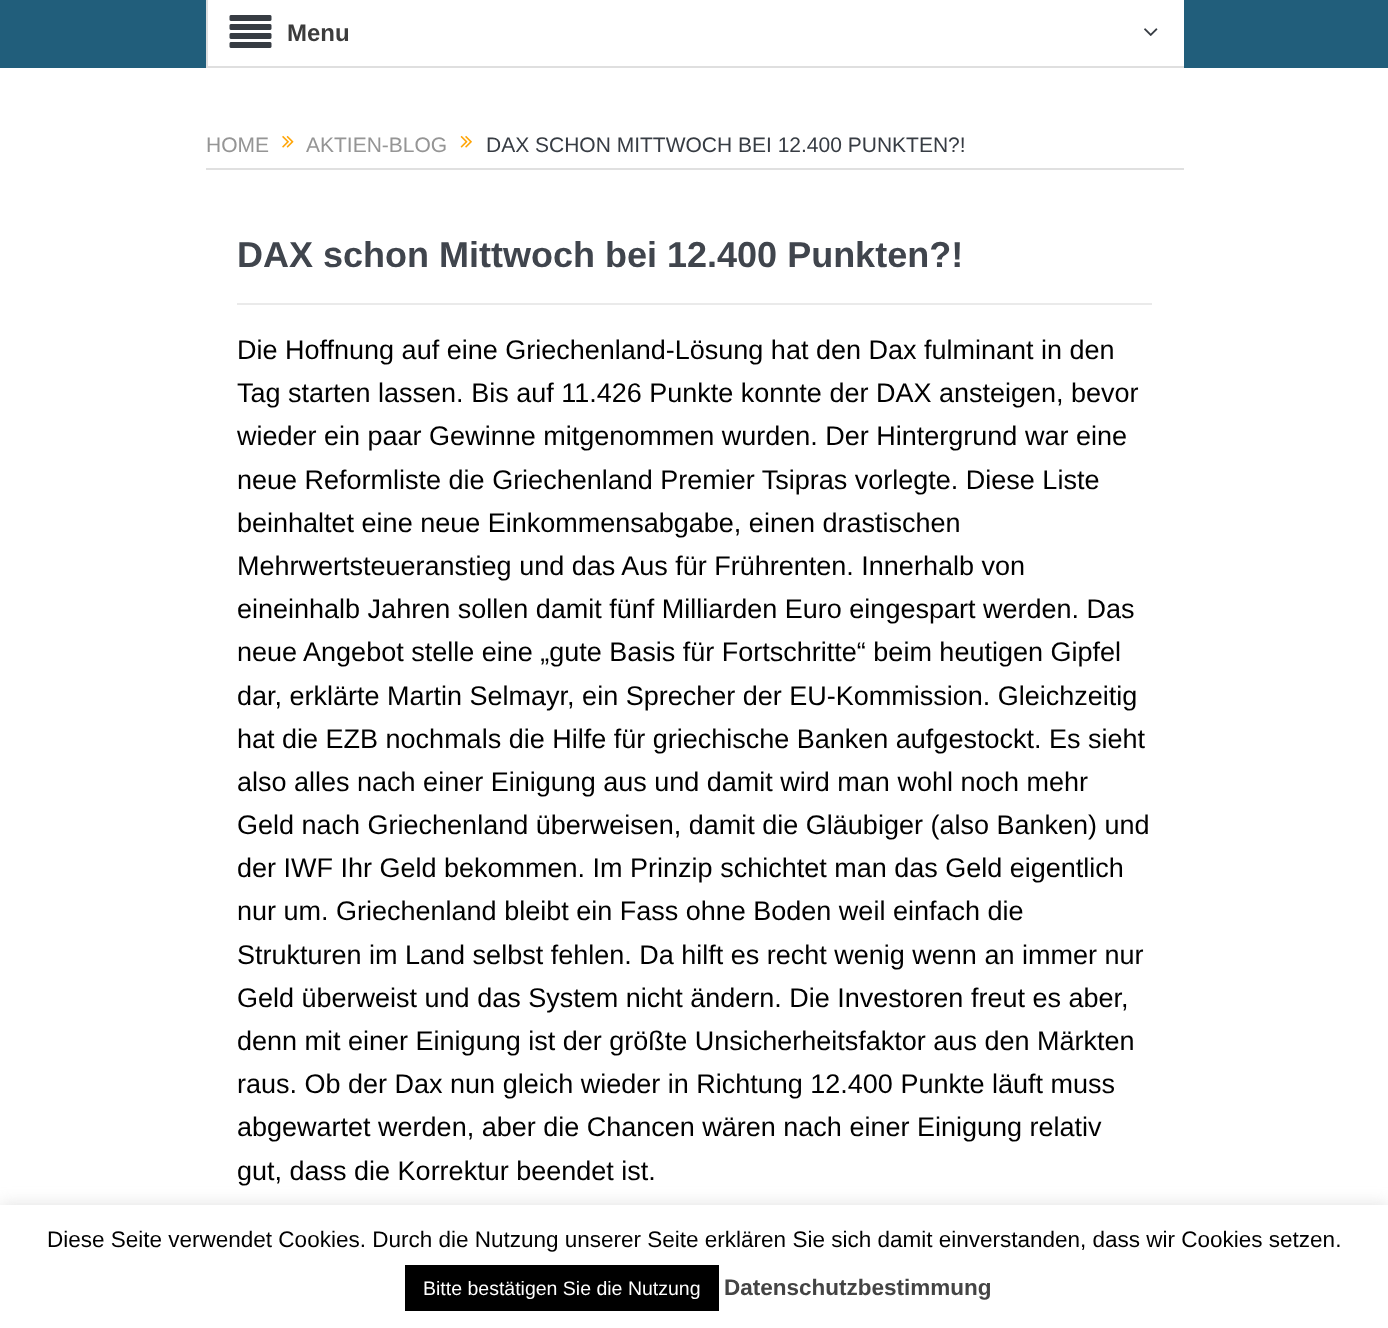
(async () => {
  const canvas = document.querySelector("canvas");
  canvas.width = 1388;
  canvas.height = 1328;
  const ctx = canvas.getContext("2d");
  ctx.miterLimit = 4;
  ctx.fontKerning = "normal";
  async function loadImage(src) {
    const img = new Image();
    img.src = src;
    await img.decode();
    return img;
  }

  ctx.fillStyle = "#ffffff";
  ctx.fillRect(0, 0, 1388, 1328);
  for (const [x, y, w, h, color] of [
    [0, 0, 1388, 68, "#215e7b"],
    [208, 0, 976, 66, "#ffffff"],
    [206, 66, 978, 2, "#dfdfdf"],
    [206, 0, 2, 68, "#dfdfdf"],
  ]) {
    ctx.fillStyle = color;
    ctx.fillRect(x, y, w, h);
  }
  ctx.drawImage(await loadImage("img/1.png"), 229, 15, 43, 33);
  ctx.drawImage(await loadImage("img/2.png"), 1144, 28, 14, 8);
  ctx.fillStyle = "#e0e0e0";
  ctx.fillRect(206, 168, 978, 2);
  ctx.drawImage(await loadImage("img/3.png"), 282, 135, 12, 13);
  ctx.drawImage(await loadImage("img/4.png"), 460, 135, 12, 13);
  ctx.fillStyle = "#eaeaea";
  ctx.fillRect(237, 303, 915, 2);
  ctx.fillStyle = "rgba(172, 171, 171, 0.3)";
  ctx.filter = "blur(7.5px)";
  ctx.beginPath();
  ctx.rect(0, 1203, 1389, 125);
  ctx.fill();
  ctx.filter = "none";
  ctx.fillStyle = "#ffffff";
  ctx.fillRect(0, 1205, 1388, 123);
  ctx.fillStyle = "#000000";
  ctx.fillRect(405, 1265, 314, 46);
  ctx.font = "bold 24px Liberation Sans";
  ctx.fillStyle = "#3c3c3c";
  ctx.fillText("Menu", 287, 41);
  ctx.font = "21px Liberation Sans";
  ctx.fillStyle = "#959595";
  ctx.fillText("HOME", 206, 152);
  ctx.fillText("AKTIEN-BLOG", 306, 152);
  ctx.fillStyle = "#373c43";
  ctx.fillText("DAX SCHON MITTWOCH BEI 12.400 PUNKTEN?!", 486, 152);
  ctx.font = "bold 36px Liberation Sans";
  ctx.fillStyle = "#40454d";
  ctx.fillText("DAX schon Mittwoch bei 12.400 Punkten?!", 237, 267);
  ctx.font = "27px Liberation Sans";
  ctx.fillStyle = "#000000";
  for (const [text, x, y] of [
    ["Die Hoffnung auf eine Griechenland-Lösung hat den Dax fulminant in den", 237, 359],
    ["Tag starten lassen. Bis auf 11.426 Punkte konnte der DAX ansteigen, bevor", 237, 402],
    ["wieder ein paar Gewinne mitgenommen wurden. Der Hintergrund war eine", 237, 445],
    ["neue Reformliste die Griechenland Premier Tsipras vorlegte. Diese Liste", 237, 489],
    ["beinhaltet eine neue Einkommensabgabe, einen drastischen", 237, 532],
    ["Mehrwertsteueranstieg und das Aus für Frührenten. Innerhalb von", 237, 575],
    ["eineinhalb Jahren sollen damit fünf Milliarden Euro eingespart werden. Das", 237, 618],
    ["neue Angebot stelle eine „gute Basis für Fortschritte“ beim heutigen Gipfel", 237, 661],
    ["dar, erklärte Martin Selmayr, ein Sprecher der EU-Kommission. Gleichzeitig", 237, 705],
    ["hat die EZB nochmals die Hilfe für griechische Banken aufgestockt. Es sieht", 237, 748],
    ["also alles nach einer Einigung aus und damit wird man wohl noch mehr", 237, 791],
    ["Geld nach Griechenland überweisen, damit die Gläubiger (also Banken) und", 237, 834],
    ["der IWF Ihr Geld bekommen. Im Prinzip schichtet man das Geld eigentlich", 237, 877],
    ["nur um. Griechenland bleibt ein Fass ohne Boden weil einfach die", 237, 920],
    ["Strukturen im Land selbst fehlen. Da hilft es recht wenig wenn an immer nur", 237, 964],
    ["Geld überweist und das System nicht ändern. Die Investoren freut es aber,", 237, 1007],
    ["denn mit einer Einigung ist der größte Unsicherheitsfaktor aus den Märkten", 237, 1050],
    ["raus. Ob der Dax nun gleich wieder in Richtung 12.400 Punkte läuft muss", 237, 1093],
    ["abgewartet werden, aber die Chancen wären nach einer Einigung relativ", 237, 1136],
    ["gut, dass die Korrektur beendet ist.", 237, 1180],
  ]) {
    ctx.fillText(text, x, y);
  }
  ctx.font = "22.5px Liberation Sans";
  ctx.fillText("Diese Seite verwendet Cookies. Durch die Nutzung unserer Seite erklären Sie sich damit einverstanden, dass wir Cookies setzen.", 47, 1247);
  ctx.font = "19.5px Liberation Sans";
  ctx.fillStyle = "#ffffff";
  ctx.fillText("Bitte bestätigen Sie die Nutzung", 423, 1295);
  ctx.font = "bold 22.5px Liberation Sans";
  ctx.fillStyle = "#444444";
  ctx.fillText("Datenschutzbestimmung", 724, 1295);
})();
